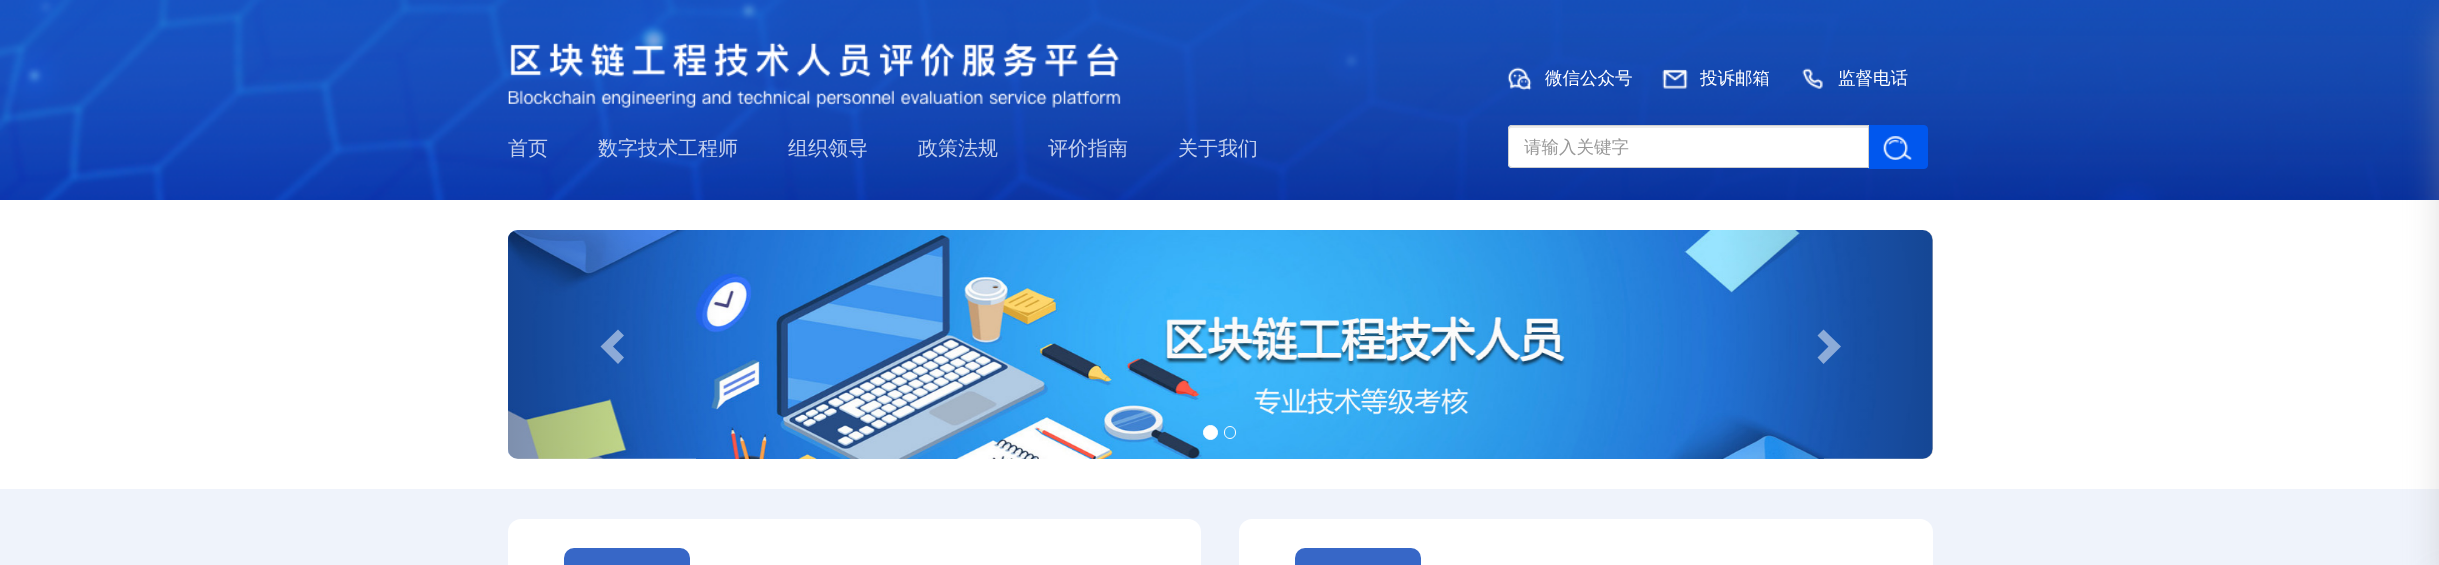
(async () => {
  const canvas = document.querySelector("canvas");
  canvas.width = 2439;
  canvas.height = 565;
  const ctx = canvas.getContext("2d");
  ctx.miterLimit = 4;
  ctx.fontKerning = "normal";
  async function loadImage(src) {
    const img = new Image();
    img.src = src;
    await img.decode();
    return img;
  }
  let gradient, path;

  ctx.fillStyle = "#eff3fb";
  ctx.fillRect(0, 0, 2439, 565);
  ctx.drawImage(await loadImage("img/1.png"), 0, 0, 2439, 200);
  ctx.drawImage(await loadImage("img/2.png"), 508, 42, 613, 66);
  ctx.drawImage(await loadImage("img/3.png"), 1507, 67, 25, 24);
  ctx.drawImage(await loadImage("img/4.png"), 1662, 69, 26, 20);
  ctx.drawImage(await loadImage("img/5.png"), 1802, 68, 21, 21);
  ctx.fillStyle = "#0057ee";
  ctx.beginPath();
  ctx.roundRect(1868.5, 125.5, 59, 43, [0, 3.5, 3.5, 0]);
  ctx.fill();
  ctx.strokeStyle = "#0057ee";
  ctx.stroke();
  ctx.fillStyle = "#ffffff";
  ctx.beginPath();
  ctx.roundRect(1508, 125, 361, 43, [4, 0, 0, 4]);
  ctx.fill();
  ctx.fillStyle = "#ececec";
  path = new Path2D("M1511 128H1868V126H1512C1509 126 1509 128 1509 130C1509 129 1510 128 1511 128Z");
  ctx.fill(path);
  ctx.beginPath();
  ctx.roundRect(1508.5, 125.5, 360, 42, [3.5, 0, 0, 3.5]);
  ctx.strokeStyle = "#cecece";
  ctx.stroke();
  ctx.drawImage(await loadImage("img/6.png"), 1883, 136, 29, 24);
  ctx.fillStyle = "#ffffff";
  ctx.fillRect(0, 200, 2439, 289);
  ctx.fillStyle = "rgba(167, 165, 165, 0.38)";
  ctx.filter = "blur(17px)";
  ctx.beginPath();
  ctx.rect(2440, 19, 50, 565);
  ctx.fill();
  ctx.filter = "none";
  ctx.drawImage(await loadImage("img/7.png"), 508, 230, 1425, 229);
  gradient = ctx.createLinearGradient(508, 344, 721, 344);
  gradient.addColorStop(0, "rgba(0, 0, 0, 0.25)");
  gradient.addColorStop(1, "rgba(0, 0, 0, 0)");
  ctx.fillStyle = gradient;
  ctx.beginPath();
  ctx.roundRect(508, 230, 213, 229, [10, 0, 0, 10]);
  ctx.fill();
  ctx.fillStyle = "rgba(255, 255, 255, 0.5)";
  path = new Path2D("M624 335.5L613 346.5L624 357.5L618 364L600.5 346.5L618 329.5Z");
  ctx.fill(path);
  ctx.fillStyle = "#ffffff";
  ctx.beginPath();
  ctx.arc(1210.5, 432.5, 7, 0, Math.PI * 2);
  ctx.fill();
  ctx.strokeStyle = "#ffffff";
  ctx.stroke();
  ctx.beginPath();
  ctx.roundRect(1224.5, 426.5, 11, 12, 5.5);
  ctx.stroke();
  gradient = ctx.createLinearGradient(1719, 344, 1933, 344);
  gradient.addColorStop(0, "rgba(0, 0, 0, 0)");
  gradient.addColorStop(1, "rgba(0, 0, 0, 0.25)");
  ctx.fillStyle = gradient;
  ctx.beginPath();
  ctx.roundRect(1719, 230, 214, 229, [0, 10, 10, 0]);
  ctx.fill();
  ctx.fillStyle = "rgba(255, 255, 255, 0.5)";
  path = new Path2D("M1841 346.5L1823.5 364L1817.5 357.5L1828.5 346.5L1817.5 335.5L1823.5 329.5Z");
  ctx.fill(path);
  ctx.fillStyle = "#ffffff";
  ctx.beginPath();
  ctx.roundRect(508, 519, 693, 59, 13);
  ctx.fill();
  ctx.fillStyle = "#3767c7";
  ctx.beginPath();
  ctx.roundRect(564, 548, 126, 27, 10);
  ctx.fill();
  ctx.fillStyle = "#ffffff";
  ctx.beginPath();
  ctx.roundRect(1239, 519, 694, 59, 13);
  ctx.fill();
  ctx.fillStyle = "#3767c7";
  ctx.beginPath();
  ctx.roundRect(1295, 548, 126, 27, 10);
  ctx.fill();
  ctx.font = "500 20px WenQuanYi Zen Hei";
  ctx.fillStyle = "#c4d0ed";
  for (const [text, x, y] of [
    ["首页", 508, 155],
    ["数字技术工程师", 598, 155],
    ["组织领导", 788, 155],
    ["政策法规", 918, 155],
    ["评价指南", 1048, 155],
    ["关于我们", 1178, 155],
  ]) {
    ctx.fillText(text, x, y);
  }
  ctx.font = "500 17.5px WenQuanYi Zen Hei";
  ctx.fillStyle = "#ffffff";
  for (const [text, x, y] of [
    ["微信公众号", 1545, 84],
    ["投诉邮箱", 1700, 84],
    ["监督电话", 1838, 84],
  ]) {
    ctx.fillText(text, x, y);
  }
  ctx.fillStyle = "#999999";
  ctx.fillText("请输入关键字", 1524, 153);
})();
